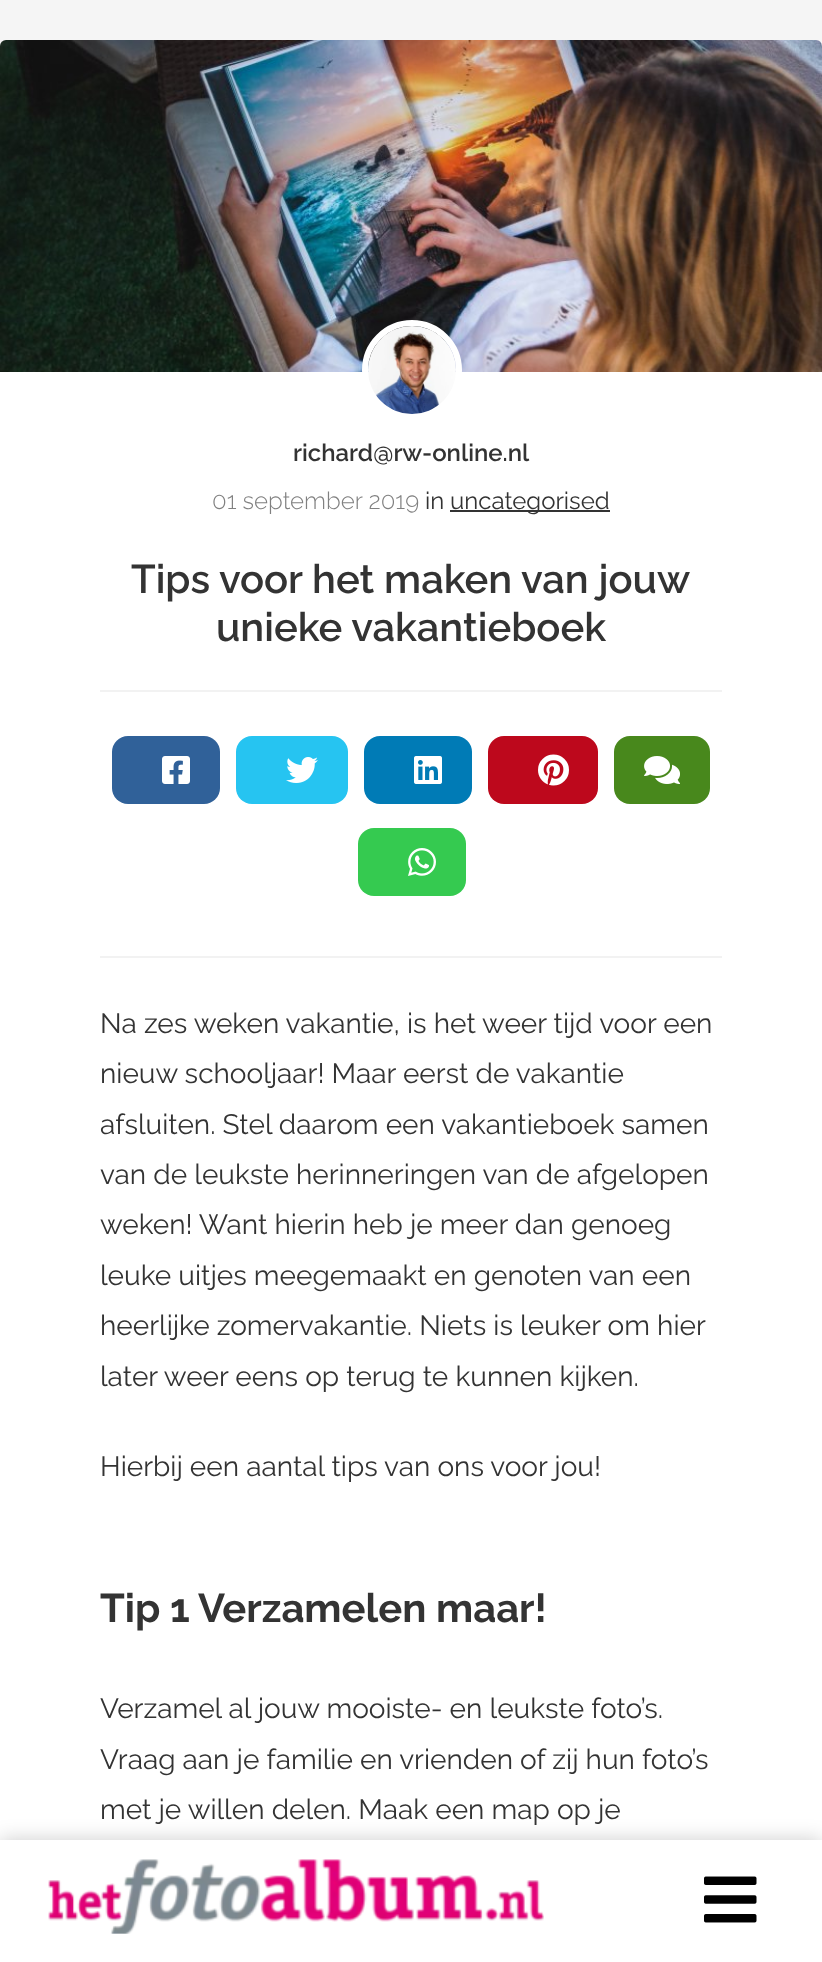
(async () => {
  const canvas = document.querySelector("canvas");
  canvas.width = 822;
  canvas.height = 1962;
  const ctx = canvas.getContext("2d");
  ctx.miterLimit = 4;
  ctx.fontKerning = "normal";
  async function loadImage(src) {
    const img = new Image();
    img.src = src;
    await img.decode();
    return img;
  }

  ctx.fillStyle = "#f5f5f5";
  ctx.fillRect(0, 0, 822, 1962);
  ctx.fillStyle = "#ffffff";
  ctx.beginPath();
  ctx.roundRect(0, 40, 822, 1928, 6);
  ctx.fill();
  ctx.drawImage(await loadImage("img/1.png"), 0, 40, 822, 332);
  ctx.fillStyle = "#f2f2f2";
  ctx.fillRect(100, 690, 622, 2);
  ctx.beginPath();
  ctx.arc(412, 370, 47, 0, Math.PI * 2);
  ctx.strokeStyle = "#ffffff";
  ctx.lineWidth = 6;
  ctx.stroke();
  ctx.drawImage(await loadImage("img/2.png"), 368, 326, 88, 88);
  ctx.fillStyle = "#333333";
  ctx.fillRect(450, 510, 160, 2);
  ctx.fillStyle = "#f2f2f2";
  ctx.fillRect(100, 956, 622, 2);
  ctx.fillStyle = "#306199";
  ctx.beginPath();
  ctx.roundRect(112, 736, 108, 68, 16);
  ctx.fill();
  ctx.drawImage(await loadImage("img/3.png"), 162, 756, 28, 28);
  ctx.fillStyle = "#26c4f1";
  ctx.beginPath();
  ctx.roundRect(236, 736, 112, 68, 16);
  ctx.fill();
  ctx.drawImage(await loadImage("img/4.png"), 286, 757, 32, 26);
  ctx.fillStyle = "#007bb6";
  ctx.beginPath();
  ctx.roundRect(364, 736, 108, 68, 16);
  ctx.fill();
  ctx.drawImage(await loadImage("img/5.png"), 414, 756, 28, 28);
  ctx.fillStyle = "#bd081c";
  ctx.beginPath();
  ctx.roundRect(488, 736, 110, 68, 16);
  ctx.fill();
  ctx.drawImage(await loadImage("img/6.png"), 538, 754, 31, 32);
  ctx.fillStyle = "#48881c";
  ctx.beginPath();
  ctx.roundRect(614, 736, 96, 68, 16);
  ctx.fill();
  ctx.drawImage(await loadImage("img/7.png"), 644, 756, 36, 28);
  ctx.fillStyle = "#35ca50";
  ctx.beginPath();
  ctx.roundRect(358, 828, 108, 68, 16);
  ctx.fill();
  ctx.drawImage(await loadImage("img/8.png"), 408, 848, 28, 28);
  ctx.fillStyle = "rgba(0, 0, 0, 0.2)";
  ctx.filter = "blur(10px)";
  ctx.beginPath();
  ctx.rect(0, 1840, 822, 122);
  ctx.fill();
  ctx.filter = "none";
  ctx.fillStyle = "#ffffff";
  ctx.fillRect(0, 1840, 822, 122);
  ctx.drawImage(await loadImage("img/9.png"), 48, 1859, 496, 75);
  ctx.drawImage(await loadImage("img/10.png"), 704, 1876, 53, 47);
  ctx.font = "600 24px Raleway";
  ctx.fillStyle = "#333333";
  ctx.fillText("richard@rw-online.nl", 293, 461);
  ctx.font = "300 24px Raleway";
  ctx.fillStyle = "#808080";
  ctx.fillText("01 september 2019", 212, 509);
  ctx.font = "24px Raleway";
  ctx.fillStyle = "#333333";
  ctx.fillText("in", 425, 509);
  ctx.fillText("uncategorised", 450, 509);
  ctx.font = "600 40px Raleway";
  ctx.fillText("Tips voor het maken van jouw", 131, 593);
  ctx.fillText("unieke vakantieboek", 216, 641);
  ctx.font = "28px Raleway";
  for (const [text, x, y] of [
    ["Na zes weken vakantie, is het weer tijd voor een", 100, 1033],
    ["nieuw schooljaar! Maar eerst de vakantie", 100, 1083],
    ["afsluiten. Stel daarom een vakantieboek samen", 100, 1134],
    ["van de leukste herinneringen van de afgelopen", 100, 1184],
    ["weken! Want hierin heb je meer dan genoeg", 100, 1234],
    ["leuke uitjes meegemaakt en genoten van een", 100, 1285],
    ["heerlijke zomervakantie. Niets is leuker om hier", 100, 1335],
    ["later weer eens op terug te kunnen kijken.", 100, 1386],
    ["Hierbij een aantal tips van ons voor jou!", 100, 1476],
  ]) {
    ctx.fillText(text, x, y);
  }
  ctx.font = "bold 40px Raleway";
  ctx.fillText("Tip 1 Verzamelen maar!", 100, 1622);
  ctx.font = "28px Raleway";
  for (const [text, x, y] of [
    ["Verzamel al jouw mooiste- en leukste foto’s.", 100, 1718],
    ["Vraag aan je familie en vrienden of zij hun foto’s", 100, 1769],
    ["met je willen delen. Maak een map op je", 100, 1819],
  ]) {
    ctx.fillText(text, x, y);
  }
})();
